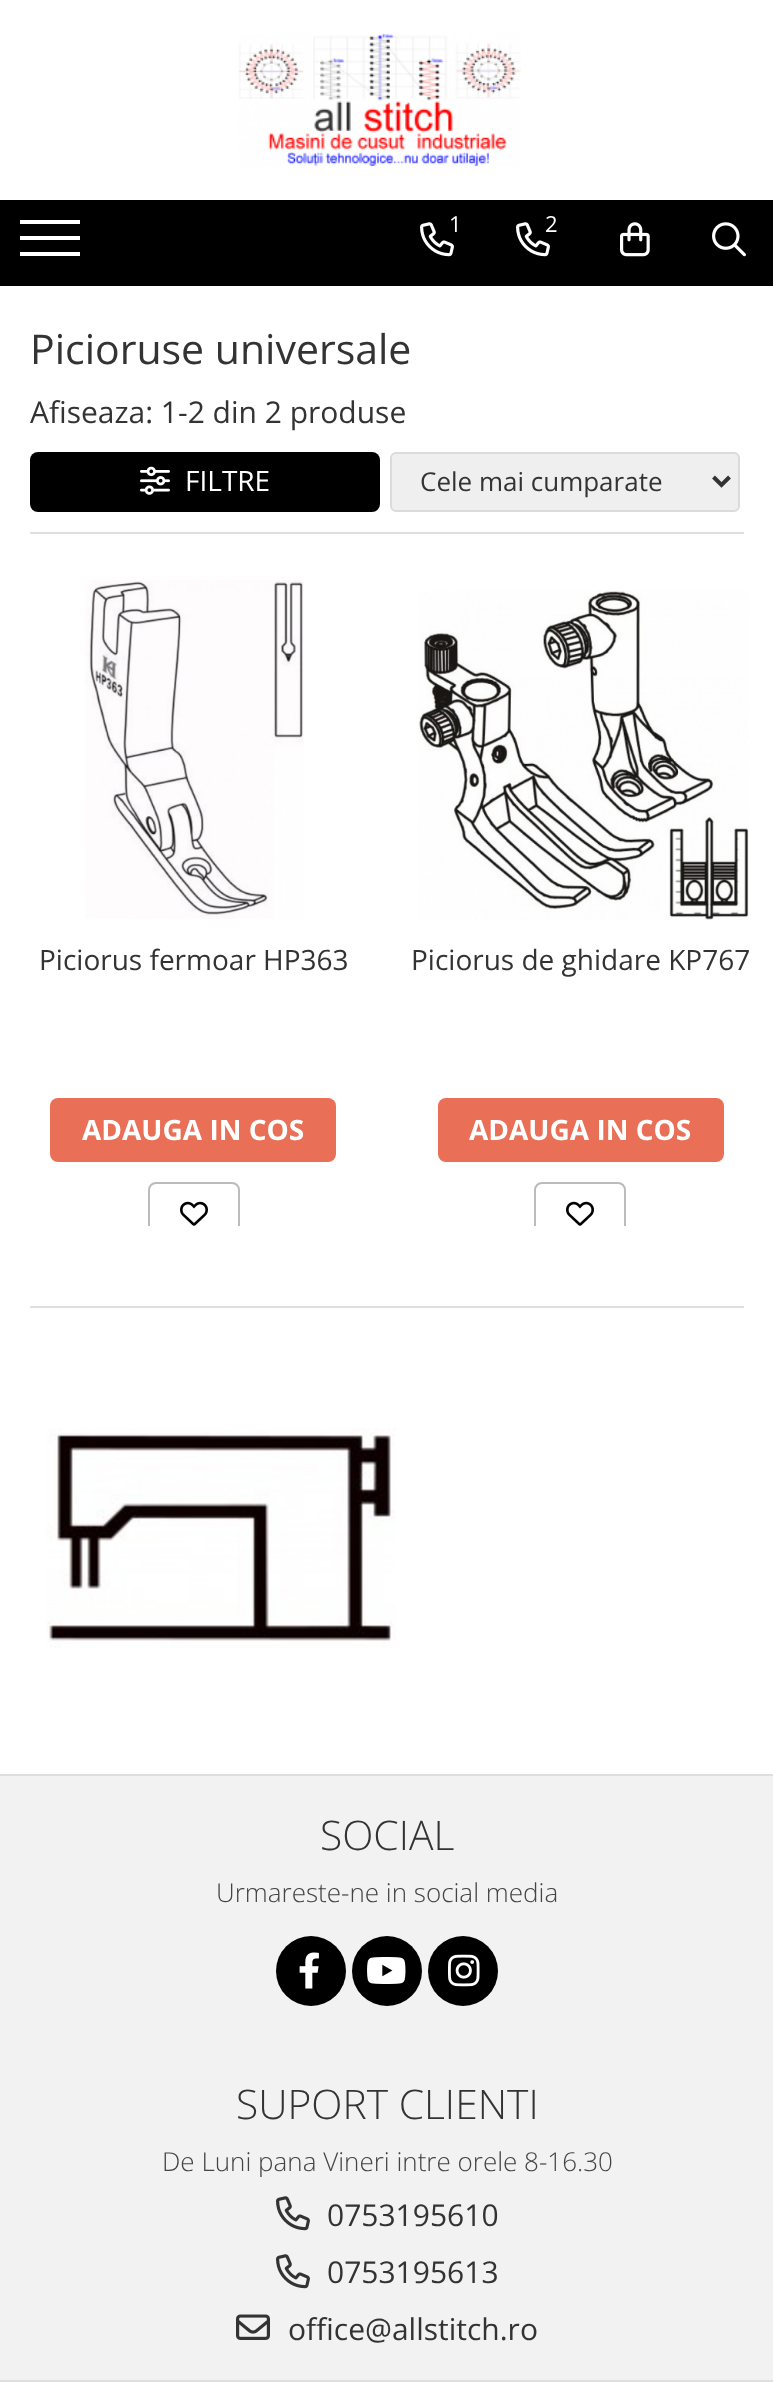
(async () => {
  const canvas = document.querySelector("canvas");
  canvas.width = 773;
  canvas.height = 2386;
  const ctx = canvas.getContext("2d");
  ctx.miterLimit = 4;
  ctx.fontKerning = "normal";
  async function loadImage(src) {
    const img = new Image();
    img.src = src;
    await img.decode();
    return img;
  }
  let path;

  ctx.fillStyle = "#ffffff";
  ctx.fillRect(0, 0, 773, 2386);
  ctx.drawImage(await loadImage("img/1.png"), 238, 34, 283, 133);
  for (const [x, y, w, h, color] of [
    [0, 200, 773, 86, "#000000"],
    [20, 236, 60, 4, "#ffffff"],
    [20, 220, 60, 4, "#ffffff"],
    [20, 252, 60, 4, "#ffffff"],
  ]) {
    ctx.fillStyle = color;
    ctx.fillRect(x, y, w, h);
  }
  ctx.drawImage(await loadImage("img/2.png"), 420, 222, 34, 35);
  ctx.drawImage(await loadImage("img/2.png"), 516, 222, 34, 35);
  ctx.drawImage(await loadImage("img/3.png"), 620, 222, 30, 35);
  ctx.drawImage(await loadImage("img/4.png"), 712, 222, 34, 35);
  ctx.fillStyle = "#dfdfdf";
  ctx.fillRect(30, 532, 714, 2);
  ctx.fillStyle = "#000000";
  ctx.beginPath();
  ctx.roundRect(30, 452, 350, 60, 8);
  ctx.fill();
  ctx.drawImage(await loadImage("img/5.png"), 140, 466, 30, 29);
  ctx.fillStyle = "#efefef";
  ctx.beginPath();
  ctx.roundRect(391, 453, 348, 58, 5);
  ctx.fill();
  ctx.strokeStyle = "#dbdbdb";
  ctx.lineWidth = 2;
  ctx.stroke();
  path = new Path2D("M713.5 477L721.5 485L729.5 477");
  ctx.strokeStyle = "#333333";
  ctx.lineWidth = 4;
  ctx.stroke(path);
  ctx.fillStyle = "#dfdfdf";
  ctx.fillRect(30, 1306, 714, 2);
  ctx.drawImage(await loadImage("img/6.png"), 85, 580, 219, 339);
  ctx.fillStyle = "#e96f56";
  ctx.beginPath();
  ctx.roundRect(50, 1098, 286, 64, 8);
  ctx.fill();
  ctx.save();
  ctx.beginPath();
  ctx.rect(0, 574, 388, 652);
  ctx.clip();
  ctx.beginPath();
  ctx.roundRect(149, 1183, 90, 62, 7);
  ctx.strokeStyle = "#bbbbbb";
  ctx.lineWidth = 2;
  ctx.stroke();
  ctx.restore();
  ctx.drawImage(await loadImage("img/7.png"), 180, 1201, 28, 25);
  ctx.drawImage(await loadImage("img/8.png"), 418, 590, 331, 330);
  ctx.beginPath();
  ctx.roundRect(438, 1098, 286, 64, 8);
  ctx.fill();
  ctx.save();
  ctx.beginPath();
  ctx.rect(388, 574, 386, 652);
  ctx.clip();
  ctx.beginPath();
  ctx.roundRect(535, 1183, 90, 62, 7);
  ctx.strokeStyle = "#bbbbbb";
  ctx.lineWidth = 2;
  ctx.stroke();
  ctx.restore();
  ctx.drawImage(await loadImage("img/7.png"), 566, 1201, 28, 25);
  ctx.drawImage(await loadImage("img/9.png"), 46, 1428, 350, 220);
  for (const [x, y, w, h, color] of [
    [0, 1776, 773, 604, "#f2f2f2"],
    [0, 1774, 773, 2, "#dfdfdf"],
    [0, 2380, 773, 2, "#dfdfdf"],
  ]) {
    ctx.fillStyle = color;
    ctx.fillRect(x, y, w, h);
  }
  ctx.fillStyle = "#000000";
  ctx.beginPath();
  ctx.arc(311, 1971, 35, 0, Math.PI * 2);
  ctx.fill();
  ctx.drawImage(await loadImage("img/10.png"), 299, 1952, 20, 37);
  ctx.beginPath();
  ctx.arc(387, 1971, 35, 0, Math.PI * 2);
  ctx.fill();
  ctx.drawImage(await loadImage("img/11.png"), 367, 1957, 39, 27);
  ctx.beginPath();
  ctx.arc(463, 1971, 35, 0, Math.PI * 2);
  ctx.fill();
  ctx.drawImage(await loadImage("img/12.png"), 448, 1954, 32, 33);
  ctx.drawImage(await loadImage("img/13.png"), 276, 2196, 34, 35);
  ctx.drawImage(await loadImage("img/13.png"), 276, 2254, 34, 35);
  ctx.drawImage(await loadImage("img/14.png"), 236, 2314, 34, 26);
  ctx.font = "22px Open Sans";
  ctx.fillStyle = "#ffffff";
  ctx.fillText("1", 449, 232);
  ctx.fillText("2", 545, 232);
  ctx.font = "41px Open Sans";
  ctx.fillStyle = "#333333";
  ctx.fillText("Picioruse universale", 30, 364);
  ctx.font = "30px Open Sans";
  ctx.fillText("Afiseaza: 1-2 din 2 produse", 30, 423);
  ctx.font = "28px Open Sans";
  ctx.fillStyle = "#ffffff";
  ctx.fillText("FILTRE", 185, 491);
  ctx.font = "26px Open Sans";
  ctx.fillStyle = "#333333";
  ctx.fillText("Cele mai cumparate", 420, 491);
  ctx.font = "28px Open Sans";
  ctx.fillText("Piciorus fermoar HP363", 39, 970);
  ctx.font = "bold 28px Open Sans";
  ctx.fillStyle = "#ffffff";
  ctx.fillText("ADAUGA IN COS", 82, 1140);
  ctx.font = "28px Open Sans";
  ctx.fillStyle = "#333333";
  ctx.fillText("Piciorus de ghidare KP767", 411, 970);
  ctx.font = "bold 28px Open Sans";
  ctx.fillStyle = "#ffffff";
  ctx.fillText("ADAUGA IN COS", 469, 1140);
  ctx.font = "300 40.75px Open Sans";
  ctx.fillStyle = "#333333";
  ctx.fillText("SOCIAL", 320, 1850);
  ctx.font = "300 26px Open Sans";
  ctx.fillStyle = "#444444";
  ctx.fillText("Urmareste-ne in social media", 216, 1902);
  ctx.font = "300 40.75px Open Sans";
  ctx.fillStyle = "#333333";
  ctx.fillText("SUPORT CLIENTI", 236, 2119);
  ctx.font = "300 26px Open Sans";
  ctx.fillStyle = "#444444";
  ctx.fillText("De Luni pana Vineri intre orele 8-16.30", 162, 2171);
  ctx.font = "30px Open Sans";
  ctx.fillStyle = "#333333";
  for (const [text, x, y] of [
    ["0753195610", 327, 2226],
    ["0753195613", 327, 2283],
    ["office@allstitch.ro", 288, 2340],
  ]) {
    ctx.fillText(text, x, y);
  }
})();
